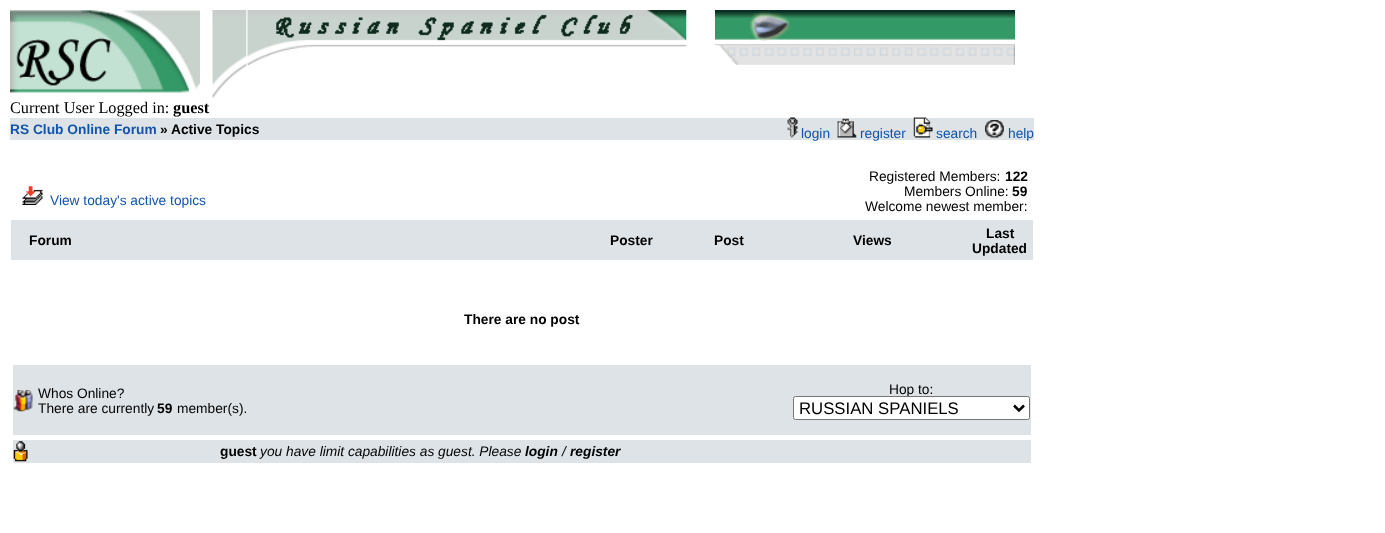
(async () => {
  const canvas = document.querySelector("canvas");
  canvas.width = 1385;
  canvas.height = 533;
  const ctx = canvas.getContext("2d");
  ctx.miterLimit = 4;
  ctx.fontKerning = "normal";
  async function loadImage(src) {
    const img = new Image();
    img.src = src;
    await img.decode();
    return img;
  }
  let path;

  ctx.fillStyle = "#ffffff";
  ctx.fillRect(0, 0, 1385, 533);
  ctx.drawImage(await loadImage("img/1.png"), 10, 10, 190, 85);
  ctx.drawImage(await loadImage("img/2.png"), 212, 10, 35, 88);
  ctx.drawImage(await loadImage("img/3.png"), 247, 10, 440, 55);
  ctx.drawImage(await loadImage("img/4.png"), 715, 10, 300, 55);
  ctx.fillStyle = "#dee3e7";
  ctx.fillRect(10, 118, 1024, 22);
  ctx.drawImage(await loadImage("img/5.png"), 787, 117, 11, 21);
  ctx.drawImage(await loadImage("img/6.png"), 837, 118, 20, 20);
  ctx.drawImage(await loadImage("img/7.png"), 913, 117, 20, 21);
  ctx.drawImage(await loadImage("img/8.png"), 985, 120, 19, 18);
  ctx.drawImage(await loadImage("img/9.png"), 22, 186, 21, 19);
  ctx.fillRect(11, 220, 1022, 40);
  ctx.fillRect(13, 365, 1018, 70);
  ctx.drawImage(await loadImage("img/10.png"), 13, 390, 20, 22);
  ctx.fillRect(13, 440, 1018, 23);
  ctx.drawImage(await loadImage("img/11.png"), 13, 441, 15, 21);
  ctx.font = "16.25px Liberation Serif";
  ctx.fillStyle = "#000000";
  ctx.fillText("Current User Logged in:", 10, 113);
  ctx.font = "bold 16.25px Liberation Serif";
  ctx.fillText("guest", 173, 113);
  ctx.font = "bold 13.75px Liberation Sans";
  ctx.fillStyle = "#1155aa";
  ctx.fillText("RS Club Online Forum", 10, 134);
  ctx.fillStyle = "#000000";
  ctx.fillText("» Active Topics", 160, 134);
  ctx.font = "13.75px Liberation Sans";
  ctx.fillStyle = "#1155aa";
  for (const [text, x, y] of [
    ["login", 801, 138],
    ["register", 860, 138],
    ["search", 936, 138],
    ["help", 1008, 138],
    ["View today's active topics", 50, 205],
  ]) {
    ctx.fillText(text, x, y);
  }
  ctx.fillStyle = "#000000";
  ctx.fillText("Registered Members:", 869, 181);
  ctx.font = "bold 13.75px Liberation Sans";
  ctx.fillText("122", 1005, 181);
  ctx.font = "13.75px Liberation Sans";
  ctx.fillText("Members Online:", 904, 196);
  ctx.font = "bold 13.75px Liberation Sans";
  ctx.fillText("59", 1012, 196);
  ctx.font = "13.75px Liberation Sans";
  ctx.fillText("Welcome newest member:", 865, 211);
  ctx.font = "bold 13.75px Liberation Sans";
  for (const [text, x, y] of [
    ["Forum", 29, 245],
    ["Poster", 610, 245],
    ["Post", 714, 245],
    ["Views", 853, 245],
    ["Last", 986, 238],
    ["Updated", 972, 253],
    ["There are no post", 464, 324],
  ]) {
    ctx.fillText(text, x, y);
  }
  ctx.font = "13.75px Liberation Sans";
  ctx.fillText("Whos Online?", 38, 398);
  ctx.fillText("There are currently", 38, 413);
  ctx.font = "bold 13.75px Liberation Sans";
  ctx.fillText("59", 157, 413);
  ctx.font = "13.75px Liberation Sans";
  ctx.fillText("member(s).", 177, 413);
  ctx.fillText("Hop to:", 889, 394);
  ctx.fillStyle = "#ffffff";
  ctx.beginPath();
  ctx.roundRect(793.5, 396.5, 236, 23, 2);
  ctx.fill();
  ctx.strokeStyle = "#767676";
  ctx.stroke();
  path = new Path2D("M1014 405.5L1019 410.5L1024 405.5");
  ctx.strokeStyle = "#000000";
  ctx.lineWidth = 2.5;
  ctx.stroke(path);
  ctx.font = "16.75px Liberation Sans";
  ctx.fillStyle = "#000000";
  ctx.fillText("RUSSIAN SPANIELS", 799, 414);
  ctx.font = "bold 13.75px Liberation Sans";
  ctx.fillText("guest", 220, 456);
  ctx.font = "italic 13.75px Liberation Sans";
  ctx.fillText("you have limit capabilities as guest. Please", 260, 456);
  ctx.font = "italic bold 13.75px Liberation Sans";
  ctx.fillText("login", 525, 456);
  ctx.font = "italic 13.75px Liberation Sans";
  ctx.fillText("/", 562, 456);
  ctx.font = "italic bold 13.75px Liberation Sans";
  ctx.fillText("register", 570, 456);
})();
